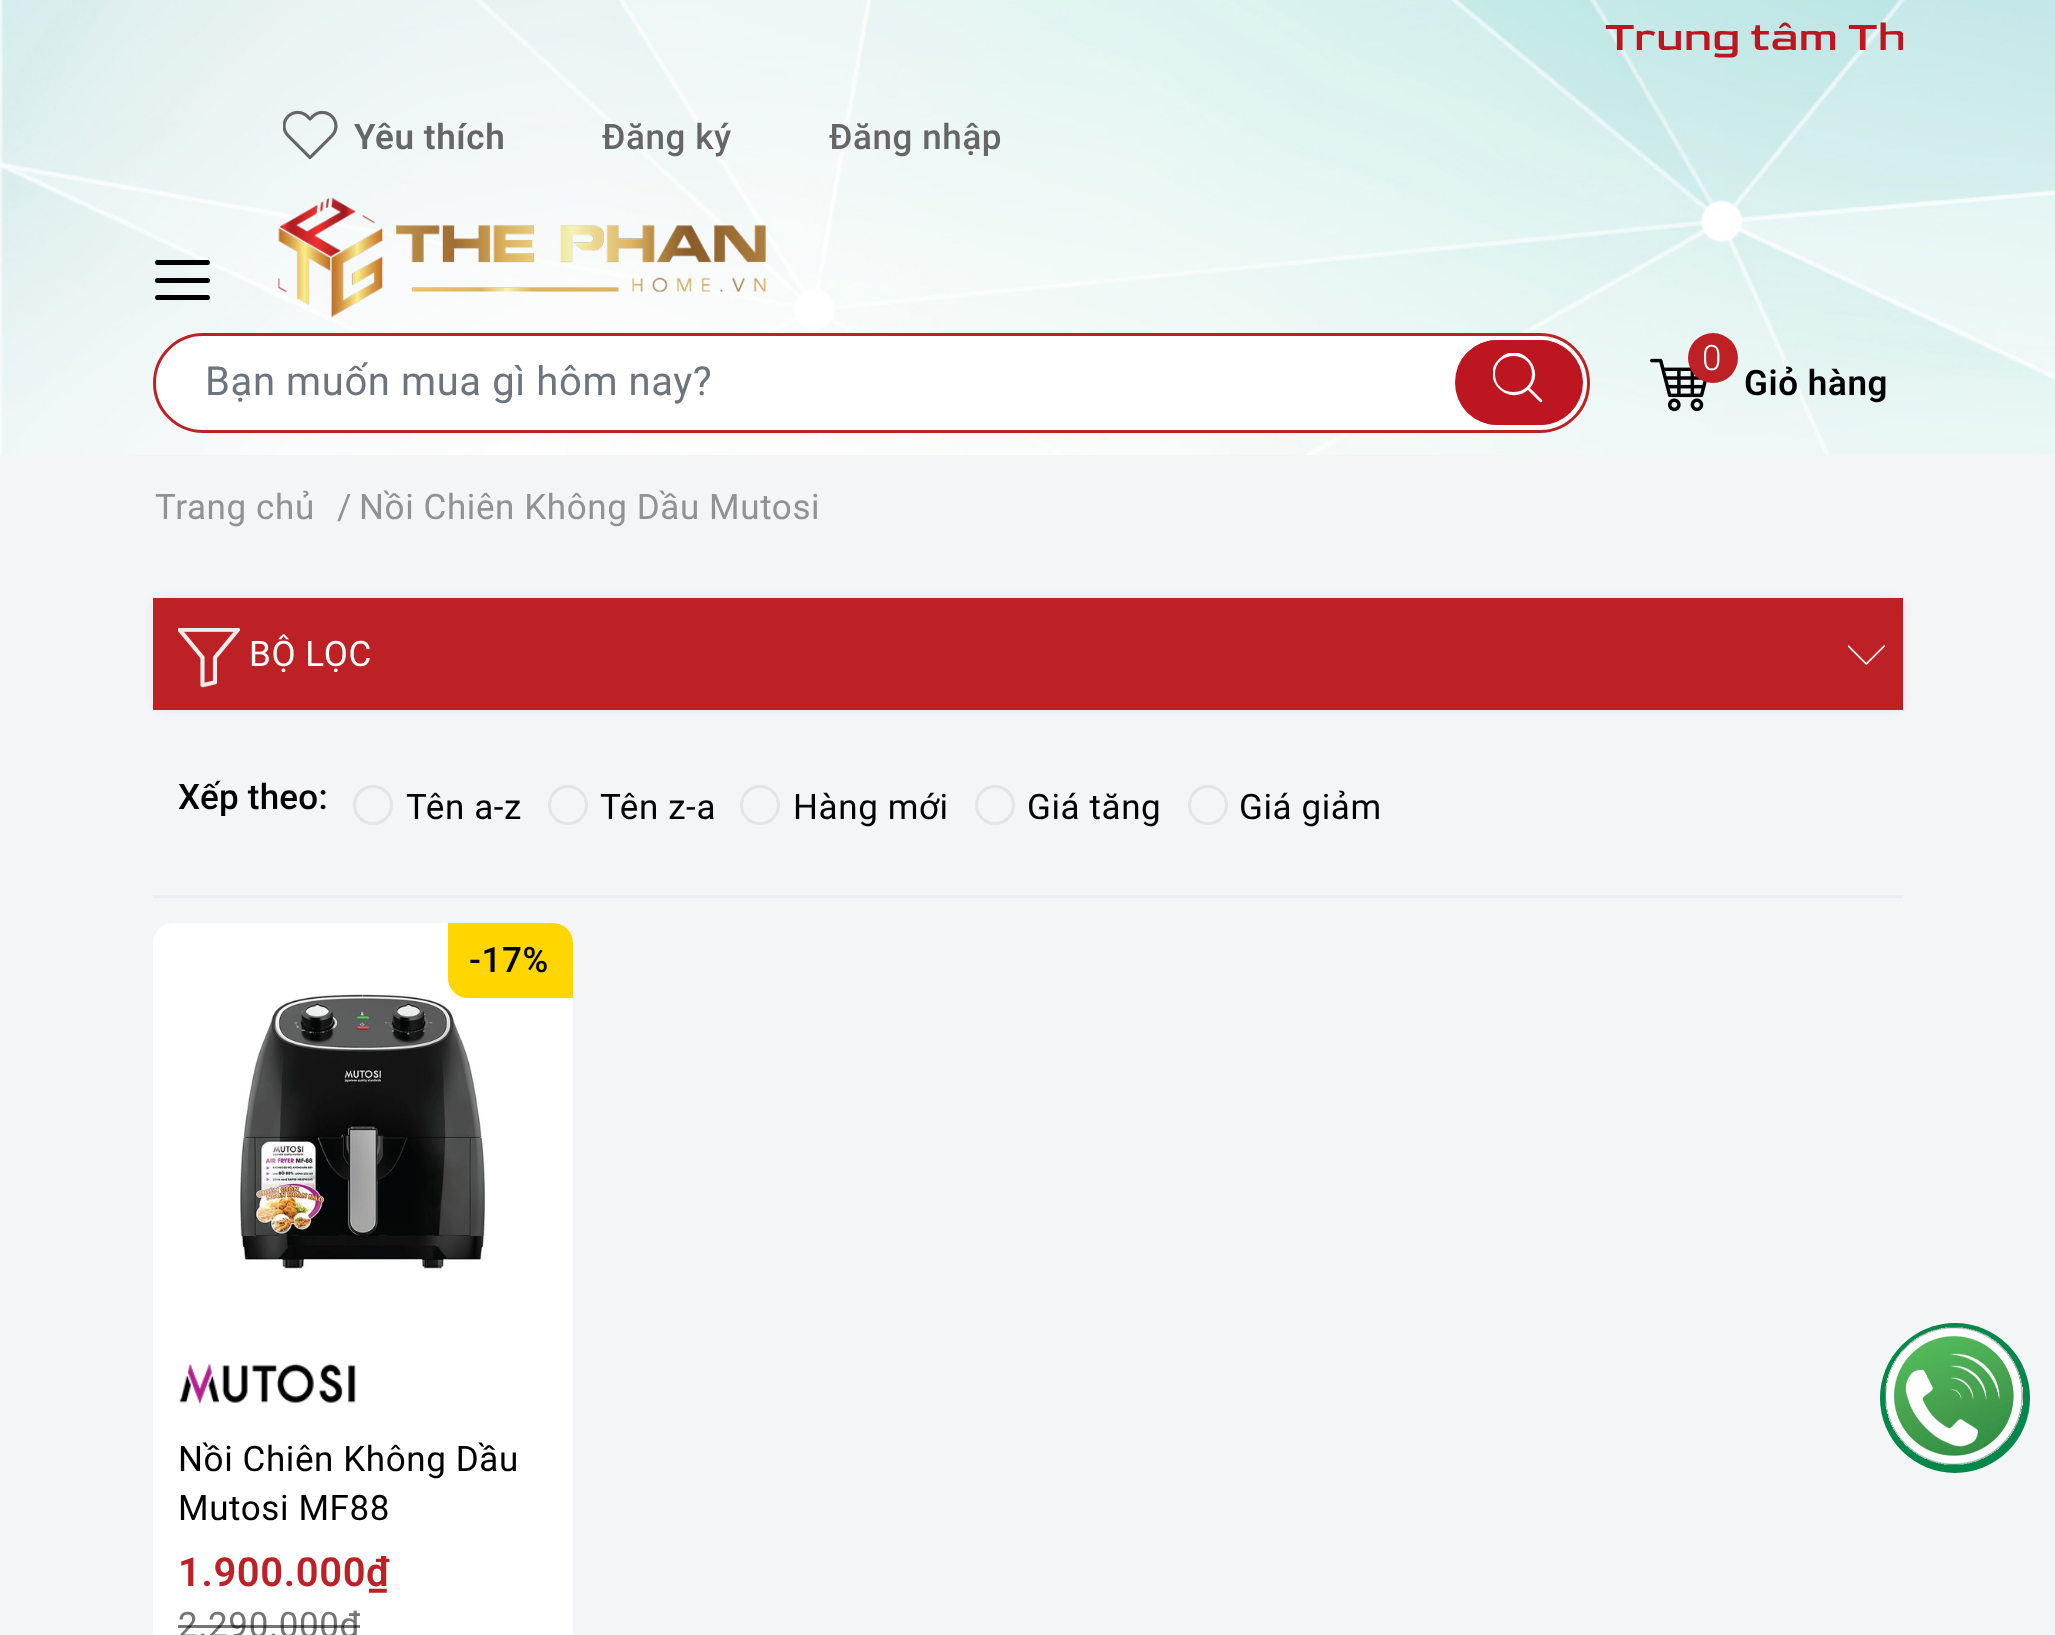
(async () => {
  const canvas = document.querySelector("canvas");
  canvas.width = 2055;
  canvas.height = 1635;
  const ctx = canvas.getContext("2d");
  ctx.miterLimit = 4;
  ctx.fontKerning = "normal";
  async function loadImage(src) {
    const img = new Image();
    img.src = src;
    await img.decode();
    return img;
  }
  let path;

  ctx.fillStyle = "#f3f5f7";
  ctx.fillRect(0, 0, 2055, 1635);
  ctx.drawImage(await loadImage("img/1.png"), 0, 0, 2055, 455);
  ctx.drawImage(await loadImage("img/2.png"), 283, 110, 55, 50);
  ctx.fillStyle = "#000000";
  ctx.beginPath();
  ctx.roundRect(155, 260, 55, 5, 2.5);
  ctx.fill();
  ctx.beginPath();
  ctx.roundRect(155, 278, 55, 5, 2.5);
  ctx.fill();
  ctx.beginPath();
  ctx.roundRect(155, 295, 55, 5, 2.5);
  ctx.fill();
  ctx.drawImage(await loadImage("img/3.png"), 278, 197, 488, 121);
  ctx.fillStyle = "#ffffff";
  ctx.beginPath();
  ctx.roundRect(154.5, 334.5, 1434, 97, 48.5);
  ctx.fill();
  ctx.strokeStyle = "#bd2126";
  ctx.lineWidth = 3;
  ctx.stroke();
  ctx.fillStyle = "#be1621";
  ctx.beginPath();
  ctx.roundRect(1455, 340, 128, 85, 42.5);
  ctx.fill();
  path = new Path2D("M1498 340H1540C1563 340 1582 359 1582 382C1582 406 1563 425 1540 425H1498C1474 425 1455 406 1455 382C1455 359 1474 340 1498 340ZM1498 342H1540C1562 342 1580 360 1580 382C1580 405 1562 422 1540 422H1498C1474 422 1455 405 1455 382C1455 360 1474 342 1498 342Z");
  ctx.fill(path, "evenodd");
  ctx.save();
  ctx.beginPath();
  ctx.rect(1493, 353, 50, 50);
  ctx.clip();
  ctx.fillStyle = "#ffffff";
  path = new Path2D("M1542 400L1530 388C1547 368 1518 339 1499 359C1479 378 1508 407 1528 390L1540 402C1541 403 1543 401 1542 400ZM1495 374C1495 350 1532 350 1532 374C1532 398 1495 398 1495 374Z");
  ctx.fill(path);
  ctx.restore();
  ctx.drawImage(await loadImage("img/4.png"), 1650, 358, 57, 54);
  ctx.fillStyle = "#bd2126";
  ctx.beginPath();
  ctx.arc(1713, 358, 25, 0, Math.PI * 2);
  ctx.fill();
  ctx.fillStyle = "rgba(152, 165, 185, 0.2)";
  ctx.filter = "blur(5px)";
  ctx.beginPath();
  ctx.roundRect(153, 598, 1750, 112, 10);
  ctx.fill();
  ctx.filter = "none";
  ctx.fillStyle = "#bd2126";
  ctx.fillRect(153, 598, 1750, 112);
  ctx.drawImage(await loadImage("img/5.png"), 178, 628, 62, 60);
  ctx.drawImage(await loadImage("img/6.png"), 1848, 645, 37, 20);
  ctx.fillStyle = "#eaedf1";
  ctx.fillRect(153, 895, 1750, 3);
  ctx.beginPath();
  ctx.arc(373, 805, 18.5, 0, Math.PI * 2);
  ctx.strokeStyle = "#e5e5e5";
  ctx.stroke();
  ctx.beginPath();
  ctx.arc(568, 805, 18.5, 0, Math.PI * 2);
  ctx.stroke();
  ctx.beginPath();
  ctx.arc(760, 805, 18.5, 0, Math.PI * 2);
  ctx.stroke();
  ctx.beginPath();
  ctx.arc(995, 805, 18.5, 0, Math.PI * 2);
  ctx.stroke();
  ctx.beginPath();
  ctx.arc(1208, 805, 18.5, 0, Math.PI * 2);
  ctx.stroke();
  ctx.fillStyle = "#ffffff";
  ctx.beginPath();
  ctx.roundRect(153, 923, 420, 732, 20);
  ctx.fill();
  ctx.drawImage(await loadImage("img/7.png"), 240, 994, 246, 275);
  ctx.fillStyle = "#ffd600";
  ctx.beginPath();
  ctx.roundRect(448, 923, 125, 75, [0, 20, 0, 20]);
  ctx.fill();
  ctx.drawImage(await loadImage("img/8.png"), 179, 1363, 177, 41);
  ctx.fillStyle = "#008749";
  ctx.beginPath();
  ctx.arc(1955, 1398, 75, 0, Math.PI * 2);
  ctx.fill();
  ctx.drawImage(await loadImage("img/9.png"), 1885, 1327, 138, 138);
  ctx.save();
  ctx.beginPath();
  ctx.rect(1100, 3, 803, 72);
  ctx.clip();
  ctx.letterSpacing = "0.6px";
  ctx.font = "42.5px Goldman";
  ctx.fillStyle = "#be1621";
  ctx.fillText("Trung tâm Th", 1605, 50);
  ctx.restore();
  ctx.letterSpacing = "0.6px";
  ctx.font = "600 35px Roboto";
  ctx.fillStyle = "#666666";
  ctx.fillText("Yêu thích", 354, 149);
  ctx.font = "500 35px Roboto";
  ctx.fillText("Đăng ký", 602, 149);
  ctx.fillText("Đăng nhập", 829, 149);
  ctx.font = "40px Roboto";
  ctx.fillStyle = "#6c757d";
  ctx.fillText("Bạn muốn mua gì hôm nay?", 205, 395);
  ctx.font = "300 35px Roboto";
  ctx.fillStyle = "#ffffff";
  ctx.fillText("0", 1702, 370);
  ctx.font = "600 35px Roboto";
  ctx.fillStyle = "#000000";
  ctx.fillText("Giỏ hàng", 1744, 395);
  ctx.font = "35px Roboto";
  ctx.fillStyle = "#929292";
  for (const [text, x, y] of [
    ["Trang chủ", 155, 519],
    ["/", 337, 519],
    ["Nồi Chiên Không Dầu Mutosi", 359, 519],
  ]) {
    ctx.fillText(text, x, y);
  }
  ctx.fillStyle = "#ffffff";
  ctx.fillText("BỘ LỌC", 249, 666);
  ctx.letterSpacing = "0.25px";
  ctx.font = "500 35px Roboto";
  ctx.fillStyle = "#000000";
  ctx.fillText("Xếp theo:", 178, 809);
  ctx.letterSpacing = "0.6px";
  ctx.font = "35px Roboto";
  for (const [text, x, y] of [
    ["Tên a-z", 406, 819],
    ["Tên z-a", 600, 819],
    ["Hàng mới", 793, 819],
    ["Giá tăng", 1027, 819],
    ["Giá giảm", 1239, 819],
  ]) {
    ctx.fillText(text, x, y);
  }
  ctx.font = "500 35px Roboto";
  ctx.fillText("-17%", 469, 972);
  ctx.font = "35px Roboto";
  ctx.fillText("Nồi Chiên Không Dầu", 178, 1471);
  ctx.fillText("Mutosi MF88", 178, 1520);
  ctx.font = "600 40px Roboto";
  ctx.fillStyle = "#bd2126";
  ctx.fillText("1.900.000₫", 178, 1586);
  ctx.font = "35px Roboto";
  ctx.fillStyle = "#757575";
  ctx.fillText("2.290.000₫", 178, 1637);
  ctx.fillStyle = "rgba(0, 0, 0, 0.54)";
  ctx.fillRect(178, 1625, 182, 3);
})();
